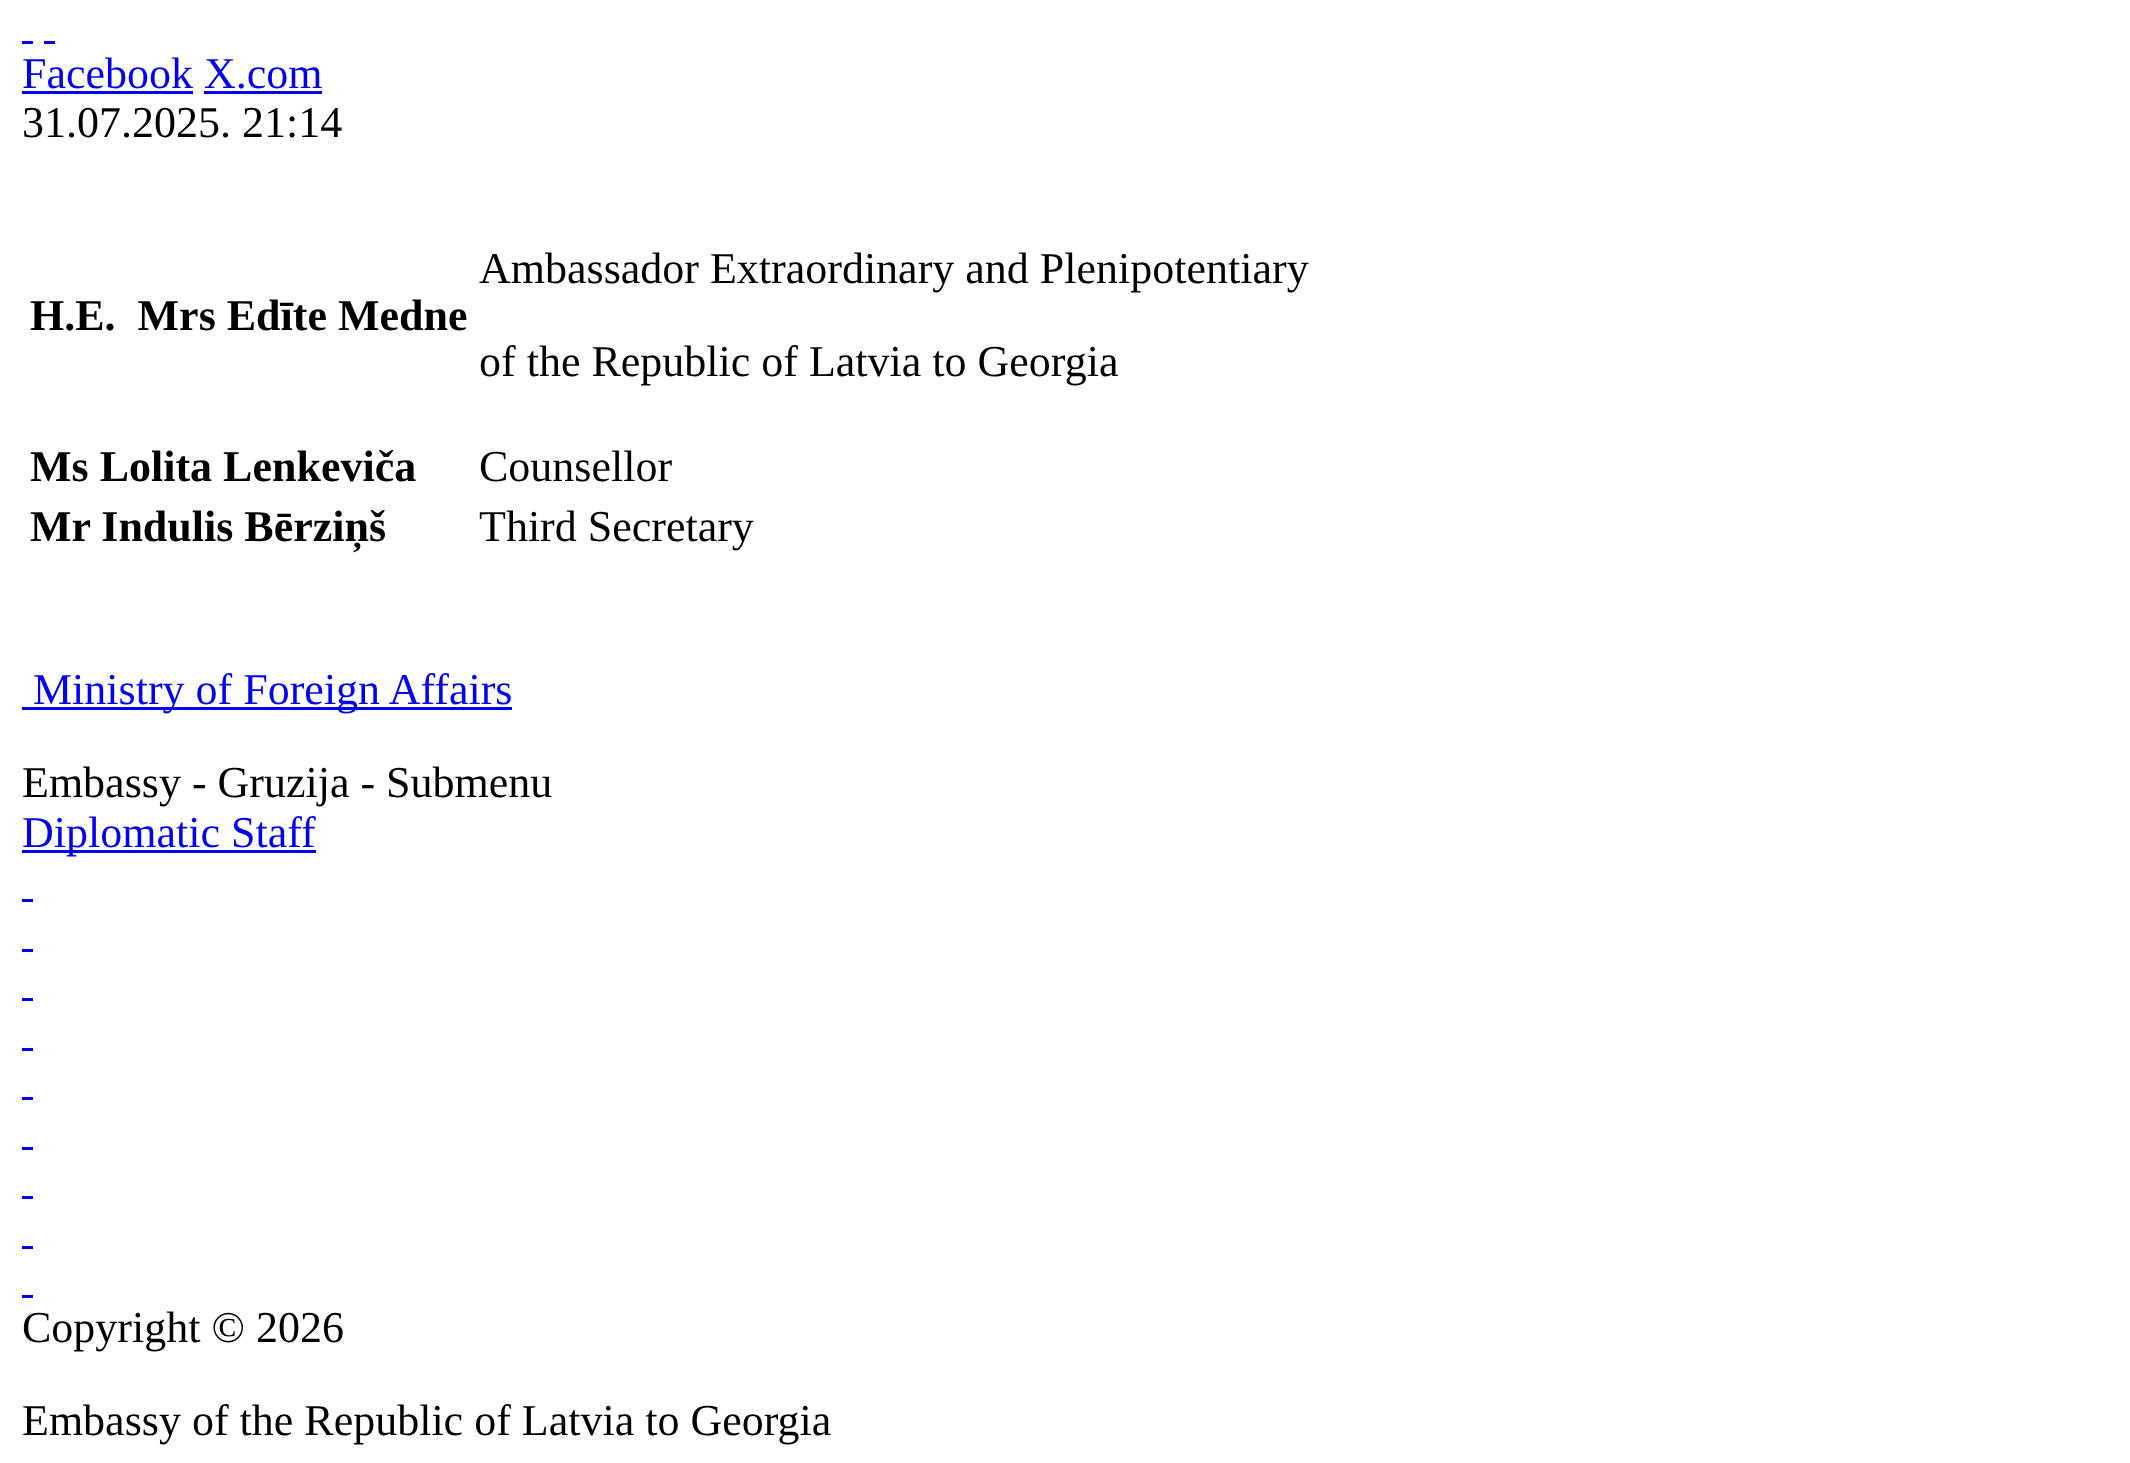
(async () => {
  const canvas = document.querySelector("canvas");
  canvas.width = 2130;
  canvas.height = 1463;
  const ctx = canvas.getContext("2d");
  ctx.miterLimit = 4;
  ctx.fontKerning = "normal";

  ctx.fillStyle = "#ffffff";
  ctx.fillRect(0, 0, 2130, 1463);
  for (const [x, y, w, h, color] of [
    [22, 41, 11, 3, "#0000ee"],
    [44, 41, 11, 3, "#0000ee"],
    [22, 91, 171, 3, "#0000ee"],
    [204, 91, 118, 3, "#0000ee"],
    [22, 707, 490, 3, "#0000ee"],
    [22, 850, 294, 3, "#0000ee"],
    [22, 899, 11, 3, "#0000ee"],
    [22, 949, 11, 3, "#0000ee"],
    [22, 998, 11, 3, "#0000ee"],
    [22, 1048, 11, 3, "#0000ee"],
    [22, 1097, 11, 3, "#0000ee"],
    [22, 1147, 11, 3, "#0000ee"],
    [22, 1196, 11, 3, "#0000ee"],
    [22, 1246, 11, 3, "#0000ee"],
    [22, 1295, 11, 3, "#0000ee"],
  ]) {
    ctx.fillStyle = color;
    ctx.fillRect(x, y, w, h);
  }
  ctx.font = "44px Liberation Serif";
  ctx.fillText("Facebook X.com", 22, 88);
  ctx.fillStyle = "#000000";
  ctx.fillText("31.07.2025. 21:14", 22, 137);
  ctx.font = "bold 44px Liberation Serif";
  ctx.fillText("H.E.  Mrs Edīte Medne", 30, 330);
  ctx.font = "44px Liberation Serif";
  ctx.fillText("Ambassador Extraordinary and Plenipotentiary", 479, 283);
  ctx.fillText("of the Republic of Latvia to Georgia", 479, 376);
  ctx.font = "bold 44px Liberation Serif";
  ctx.fillText("Ms Lolita Lenkeviča", 30, 481);
  ctx.font = "44px Liberation Serif";
  ctx.fillText("Counsellor", 479, 481);
  ctx.font = "bold 44px Liberation Serif";
  ctx.fillText("Mr Indulis Bērziņš", 30, 541);
  ctx.font = "44px Liberation Serif";
  ctx.fillText("Third Secretary", 479, 541);
  ctx.fillStyle = "#0000ee";
  ctx.fillText("Ministry of Foreign Affairs", 33, 704);
  ctx.fillStyle = "#000000";
  ctx.fillText("Embassy - Gruzija - Submenu", 22, 797);
  ctx.fillStyle = "#0000ee";
  ctx.fillText("Diplomatic Staff", 22, 847);
  ctx.fillStyle = "#000000";
  ctx.fillText("Copyright © 2026", 22, 1342);
  ctx.fillText("Embassy of the Republic of Latvia to Georgia", 22, 1435);
})();
